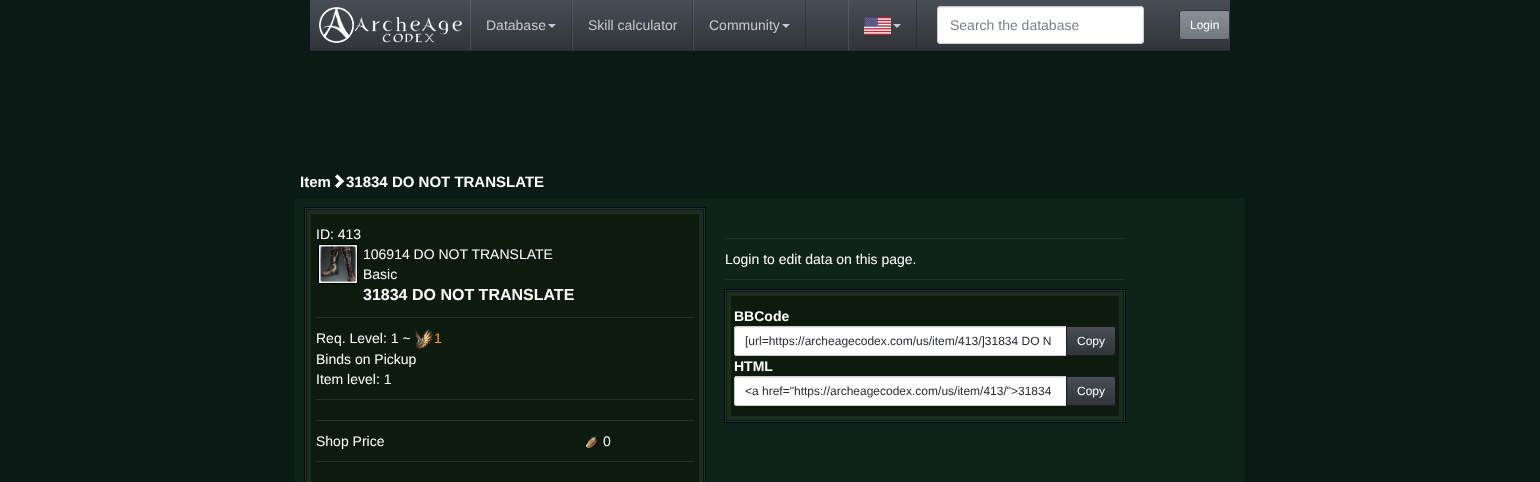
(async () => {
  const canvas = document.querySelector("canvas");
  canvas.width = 1540;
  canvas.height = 482;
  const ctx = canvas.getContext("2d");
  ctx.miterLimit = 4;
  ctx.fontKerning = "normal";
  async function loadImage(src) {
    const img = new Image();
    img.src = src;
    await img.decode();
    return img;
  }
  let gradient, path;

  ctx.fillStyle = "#091b14";
  ctx.fillRect(0, 0, 1540, 482);
  gradient = ctx.createLinearGradient(770, 0, 770, 50);
  gradient.addColorStop(0, "#484e55");
  gradient.addColorStop(0.6, "#3a3f44");
  gradient.addColorStop(1, "#313539");
  ctx.fillStyle = gradient;
  ctx.fillRect(310, 0, 920, 50);
  gradient = ctx.createLinearGradient(770, 0, 770, 50);
  gradient.addColorStop(0, "#5a6066");
  gradient.addColorStop(0.6, "#4e5257");
  gradient.addColorStop(1, "#46494d");
  ctx.fillStyle = gradient;
  ctx.fillRect(848, 0, 1, 50);
  gradient = ctx.createLinearGradient(770, 0, 770, 50);
  gradient.addColorStop(0, "#3a3e44");
  gradient.addColorStop(0.6, "#2e3236");
  gradient.addColorStop(1, "#272a2e");
  ctx.fillStyle = gradient;
  ctx.fillRect(916, 0, 1, 50);
  gradient = ctx.createLinearGradient(770, 0, 770, 50);
  gradient.addColorStop(0, "#5a6066");
  gradient.addColorStop(0.6, "#4e5257");
  gradient.addColorStop(1, "#46494d");
  ctx.fillStyle = gradient;
  ctx.fillRect(693, 0, 1, 50);
  gradient = ctx.createLinearGradient(770, 0, 770, 50);
  gradient.addColorStop(0, "#3a3e44");
  gradient.addColorStop(0.6, "#2e3236");
  gradient.addColorStop(1, "#272a2e");
  ctx.fillStyle = gradient;
  ctx.fillRect(805, 0, 1, 50);
  gradient = ctx.createLinearGradient(770, 0, 770, 50);
  gradient.addColorStop(0, "#5a6066");
  gradient.addColorStop(0.6, "#4e5257");
  gradient.addColorStop(1, "#46494d");
  ctx.fillStyle = gradient;
  ctx.fillRect(572, 0, 1, 50);
  gradient = ctx.createLinearGradient(770, 0, 770, 50);
  gradient.addColorStop(0, "#3a3e44");
  gradient.addColorStop(0.6, "#2e3236");
  gradient.addColorStop(1, "#272a2e");
  ctx.fillStyle = gradient;
  ctx.fillRect(692, 0, 1, 50);
  gradient = ctx.createLinearGradient(770, 0, 770, 50);
  gradient.addColorStop(0, "#5a6066");
  gradient.addColorStop(0.6, "#4e5257");
  gradient.addColorStop(1, "#46494d");
  ctx.fillStyle = gradient;
  ctx.fillRect(470, 0, 1, 50);
  gradient = ctx.createLinearGradient(770, 0, 770, 50);
  gradient.addColorStop(0, "#3a3e44");
  gradient.addColorStop(0.6, "#2e3236");
  gradient.addColorStop(1, "#272a2e");
  ctx.fillStyle = gradient;
  ctx.fillRect(571, 0, 1, 50);
  ctx.fillStyle = "#2b2e32";
  ctx.fillRect(310, 50, 920, 1);
  ctx.drawImage(await loadImage("img/1.png"), 319, 7, 143, 36);
  ctx.fillStyle = "#c8c8c8";
  path = new Path2D("M548 24H556L552 28Z");
  ctx.fill(path);
  path = new Path2D("M782 24H790L786 28Z");
  ctx.fill(path);
  ctx.drawImage(await loadImage("img/2.png"), 864, 17, 27, 18);
  path = new Path2D("M893 24H901L897 28Z");
  ctx.fill(path);
  ctx.fillStyle = "#ffffff";
  ctx.beginPath();
  ctx.roundRect(937, 6, 207, 38, 4);
  ctx.fill();
  ctx.fillStyle = "#ececec";
  path = new Path2D("M941 8H1140C1142 8 1143 9 1143 11C1143 9 1142 7 1140 7H941C939 7 938 9 938 11C938 9 939 8 941 8Z");
  ctx.fill(path);
  ctx.beginPath();
  ctx.roundRect(937.5, 6.5, 206, 37, 3.5);
  ctx.strokeStyle = "#cccccc";
  ctx.stroke();
  ctx.fillStyle = "#7a8288";
  ctx.beginPath();
  ctx.roundRect(1179, 10, 51, 30, 3);
  ctx.fill();
  gradient = ctx.createLinearGradient(1205, 11, 1205, 39);
  gradient.addColorStop(0, "#8a9196");
  gradient.addColorStop(0.6, "#7a8288");
  gradient.addColorStop(1, "#70787d");
  ctx.fillStyle = gradient;
  ctx.fillRect(1180, 11, 49, 28);
  ctx.beginPath();
  ctx.roundRect(1179.5, 10.5, 50, 29, 2.5);
  ctx.strokeStyle = "rgba(0, 0, 0, 0.6)";
  ctx.stroke();
  ctx.drawImage(await loadImage("img/3.png"), 335, 174, 10, 14);
  ctx.fillStyle = "#0e241a";
  ctx.fillRect(295, 198, 950, 284);
  ctx.fillStyle = "#060b14";
  ctx.filter = "blur(0.5px)";
  ctx.beginPath();
  ctx.rect(304, 207, 402, 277);
  ctx.fill();
  ctx.filter = "none";
  ctx.fillStyle = "#1b2e1b";
  ctx.beginPath();
  ctx.rect(306.5, 209.5, 397, 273);
  ctx.fill();
  ctx.strokeStyle = "#0d1420";
  ctx.stroke();
  ctx.strokeStyle = "#243427";
  ctx.strokeRect(305.5, 208.5, 399, 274);
  ctx.fillStyle = "#0d1b0f";
  ctx.fillRect(311, 214, 388, 268);
  ctx.drawImage(await loadImage("img/5.png"), 319, 245, 38, 38);
  ctx.drawImage(await loadImage("img/4.png"), 318, 244, 40, 40);
  ctx.fillStyle = "#1e3425";
  ctx.fillRect(316, 317, 378, 1);
  ctx.drawImage(await loadImage("img/6.png"), 415, 329, 18, 20);
  ctx.fillRect(316, 399, 378, 1);
  ctx.fillRect(316, 420, 378, 1);
  ctx.drawImage(await loadImage("img/7.png"), 584, 435, 14, 15);
  for (const [x, y, w, h, color] of [
    [316, 461, 378, 1, "#1e3425"],
    [725, 238, 400, 1, "#1e3425"],
    [725, 279, 400, 1, "#1e3425"],
  ]) {
    ctx.fillStyle = color;
    ctx.fillRect(x, y, w, h);
  }
  ctx.fillStyle = "#060b14";
  ctx.filter = "blur(0.5px)";
  ctx.beginPath();
  ctx.rect(724, 289, 402, 134);
  ctx.fill();
  ctx.filter = "none";
  ctx.fillStyle = "#1b2e1b";
  ctx.beginPath();
  ctx.rect(726.5, 291.5, 397, 129);
  ctx.fill();
  ctx.strokeStyle = "#0d1420";
  ctx.stroke();
  ctx.strokeStyle = "#243427";
  ctx.strokeRect(725.5, 290.5, 399, 131);
  ctx.fillStyle = "#0d1b0f";
  ctx.fillRect(731, 296, 388, 120);
  ctx.fillStyle = "#ffffff";
  ctx.beginPath();
  ctx.roundRect(734, 326, 333, 30, [3, 0, 0, 3]);
  ctx.fill();
  ctx.fillStyle = "#ececec";
  path = new Path2D("M737 328H1066V327H736L735 328V330C735 329 736 328 737 328Z");
  ctx.fill(path);
  ctx.beginPath();
  ctx.roundRect(734.5, 326.5, 332, 29, [2.5, 0, 0, 2.5]);
  ctx.strokeStyle = "#cccccc";
  ctx.stroke();
  ctx.fillStyle = "#3a3f44";
  ctx.beginPath();
  ctx.roundRect(1066, 326, 50, 30, [0, 3, 3, 0]);
  ctx.fill();
  gradient = ctx.createLinearGradient(1091, 327, 1091, 355);
  gradient.addColorStop(0, "#484e55");
  gradient.addColorStop(0.6, "#3a3f44");
  gradient.addColorStop(1, "#313539");
  ctx.fillStyle = gradient;
  ctx.fillRect(1067, 327, 48, 28);
  ctx.beginPath();
  ctx.roundRect(1066.5, 326.5, 49, 29, [0, 2.5, 2.5, 0]);
  ctx.strokeStyle = "rgba(0, 0, 0, 0.6)";
  ctx.stroke();
  ctx.fillStyle = "#ffffff";
  ctx.beginPath();
  ctx.roundRect(734, 376, 333, 30, [3, 0, 0, 3]);
  ctx.fill();
  ctx.fillStyle = "#ececec";
  path = new Path2D("M737 378H1066V377H736L735 378V380C735 379 736 378 737 378Z");
  ctx.fill(path);
  ctx.beginPath();
  ctx.roundRect(734.5, 376.5, 332, 29, [2.5, 0, 0, 2.5]);
  ctx.strokeStyle = "#cccccc";
  ctx.stroke();
  ctx.fillStyle = "#3a3f44";
  ctx.beginPath();
  ctx.roundRect(1066, 376, 50, 30, [0, 3, 3, 0]);
  ctx.fill();
  gradient = ctx.createLinearGradient(1091, 377, 1091, 405);
  gradient.addColorStop(0, "#484e55");
  gradient.addColorStop(0.6, "#3a3f44");
  gradient.addColorStop(1, "#313539");
  ctx.fillStyle = gradient;
  ctx.fillRect(1067, 377, 48, 28);
  ctx.beginPath();
  ctx.roundRect(1066.5, 376.5, 49, 29, [0, 2.5, 2.5, 0]);
  ctx.strokeStyle = "rgba(0, 0, 0, 0.6)";
  ctx.stroke();
  ctx.font = "14px Liberation Sans";
  ctx.fillStyle = "#c8c8c8";
  for (const [text, x, y] of [
    ["Database", 486, 30],
    ["Skill calculator", 588, 30],
    ["Community", 709, 30],
  ]) {
    ctx.fillText(text, x, y);
  }
  ctx.fillStyle = "#7a8288";
  ctx.fillText("Search the database", 950, 30);
  ctx.font = "12px Liberation Sans";
  ctx.fillStyle = "#ffffff";
  ctx.fillText("Login", 1190, 29);
  ctx.font = "bold 15px Liberation Sans";
  ctx.fillText("Item", 300, 187);
  ctx.fillText("31834 DO NOT TRANSLATE", 346, 187);
  ctx.font = "14px Liberation Sans";
  for (const [text, x, y] of [
    ["ID: 413", 316, 239],
    ["106914 DO NOT TRANSLATE", 363, 259],
    ["Basic", 363, 279],
  ]) {
    ctx.fillText(text, x, y);
  }
  ctx.font = "bold 16px Liberation Sans";
  ctx.fillText("31834 DO NOT TRANSLATE", 363, 300);
  ctx.font = "14px Liberation Sans";
  ctx.fillText("Req. Level: 1 ~", 316, 343);
  ctx.fillStyle = "#ff9c27";
  ctx.fillText("1", 434, 343);
  ctx.fillStyle = "#ffffff";
  for (const [text, x, y] of [
    ["Binds on Pickup", 316, 364],
    ["Item level: 1", 316, 384],
    ["Shop Price", 316, 446],
    ["0", 603, 446],
    ["Login to edit data on this page.", 725, 264],
  ]) {
    ctx.fillText(text, x, y);
  }
  ctx.font = "bold 14px Liberation Sans";
  ctx.fillText("BBCode", 734, 321);
  ctx.font = "12px Liberation Sans";
  ctx.fillStyle = "#272b30";
  ctx.fillText("[url=https://archeagecodex.com/us/item/413/]31834 DO N", 745, 345);
  ctx.fillStyle = "#ffffff";
  ctx.fillText("Copy", 1077, 345);
  ctx.font = "bold 14px Liberation Sans";
  ctx.fillText("HTML", 734, 371);
  ctx.font = "12px Liberation Sans";
  ctx.fillStyle = "#272b30";
  ctx.fillText("<a href=\"https://archeagecodex.com/us/item/413/\">31834", 745, 395);
  ctx.fillStyle = "#ffffff";
  ctx.fillText("Copy", 1077, 395);
})();
